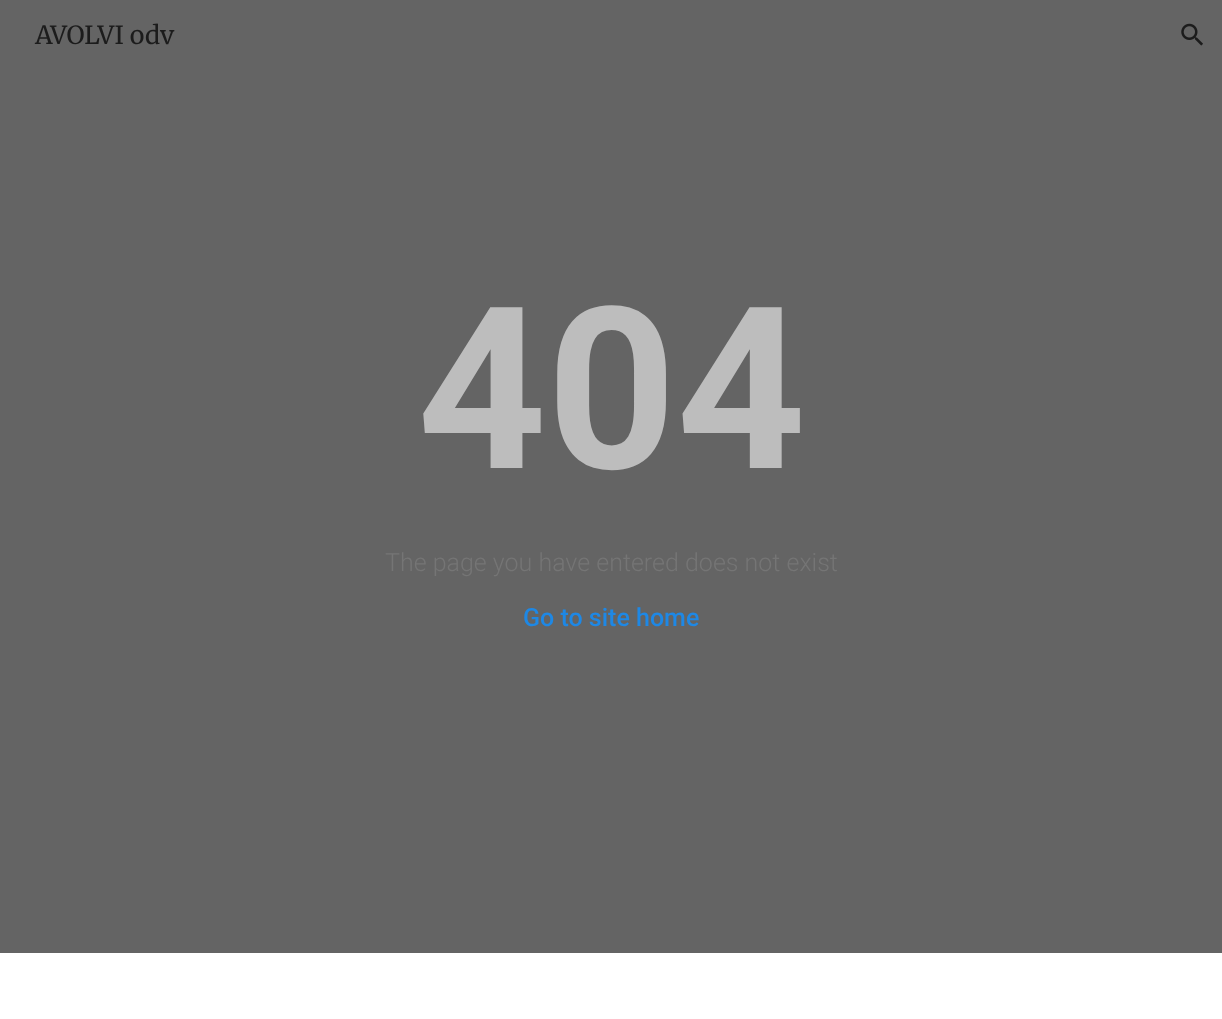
(async () => {
  const canvas = document.querySelector("canvas");
  canvas.width = 1222;
  canvas.height = 1019;
  const ctx = canvas.getContext("2d");
  ctx.miterLimit = 4;
  ctx.fontKerning = "normal";
  async function loadImage(src) {
    const img = new Image();
    img.src = src;
    await img.decode();
    return img;
  }

  ctx.fillStyle = "#ffffff";
  ctx.fillRect(0, 0, 1222, 1019);
  ctx.fillStyle = "#646464";
  ctx.fillRect(0, 0, 1222, 953);
  ctx.drawImage(await loadImage("img/1.png"), 1181, 23, 22, 23);
  ctx.font = "25px Merriweather";
  ctx.fillStyle = "#1c1c1c";
  ctx.fillText("AVOLVI odv", 35, 44);
  ctx.font = "bold 226px Roboto";
  ctx.fillStyle = "#bdbdbd";
  ctx.fillText("404", 417, 468);
  ctx.font = "300 25px Roboto";
  ctx.fillStyle = "#757575";
  ctx.fillText("The page you have entered does not exist", 385, 571);
  ctx.font = "500 25px Roboto";
  ctx.fillStyle = "#1e88e5";
  ctx.fillText("Go to site home", 523, 626);
})();
